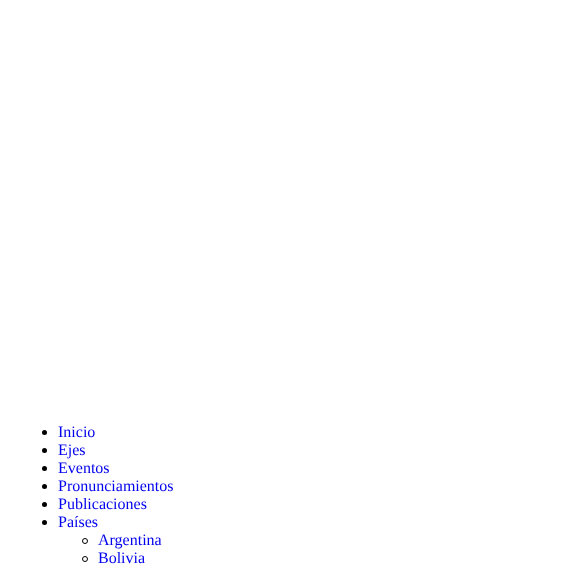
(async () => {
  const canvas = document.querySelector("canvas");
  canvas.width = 568;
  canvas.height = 568;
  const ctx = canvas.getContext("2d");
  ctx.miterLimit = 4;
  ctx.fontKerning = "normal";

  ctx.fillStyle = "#ffffff";
  ctx.fillRect(0, 0, 568, 568);
  ctx.fillStyle = "#000000";
  ctx.beginPath();
  ctx.arc(44.5, 432.5, 2.5, 0, Math.PI * 2);
  ctx.fill();
  ctx.beginPath();
  ctx.arc(44.5, 450.5, 2.5, 0, Math.PI * 2);
  ctx.fill();
  ctx.beginPath();
  ctx.arc(44.5, 468.5, 2.5, 0, Math.PI * 2);
  ctx.fill();
  ctx.beginPath();
  ctx.arc(44.5, 486.5, 2.5, 0, Math.PI * 2);
  ctx.fill();
  ctx.beginPath();
  ctx.arc(44.5, 504.5, 2.5, 0, Math.PI * 2);
  ctx.fill();
  ctx.beginPath();
  ctx.arc(44.5, 522.5, 2.5, 0, Math.PI * 2);
  ctx.fill();
  ctx.beginPath();
  ctx.arc(85, 541, 2.5, 0, Math.PI * 2);
  ctx.strokeStyle = "#000000";
  ctx.stroke();
  ctx.beginPath();
  ctx.arc(85, 559, 2.5, 0, Math.PI * 2);
  ctx.stroke();
  ctx.font = "16px Liberation Serif";
  ctx.fillStyle = "#0000ee";
  for (const [text, x, y] of [
    ["Inicio", 58, 437],
    ["Ejes", 58, 455],
    ["Eventos", 58, 473],
    ["Pronunciamientos", 58, 491],
    ["Publicaciones", 58, 509],
    ["Países", 58, 527],
    ["Argentina", 98, 545],
    ["Bolivia", 98, 563],
  ]) {
    ctx.fillText(text, x, y);
  }
})();
